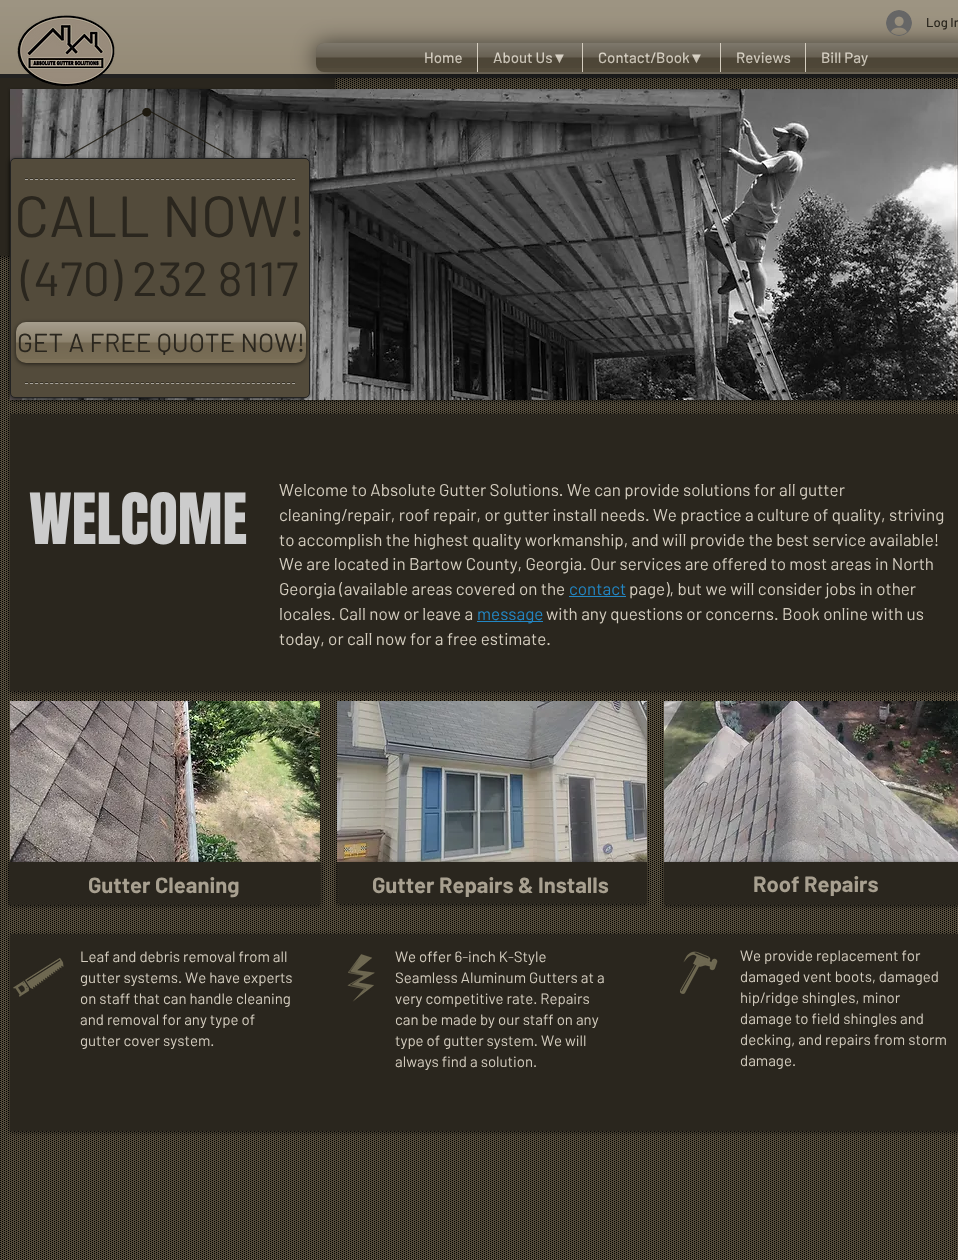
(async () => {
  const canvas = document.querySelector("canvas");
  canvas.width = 958;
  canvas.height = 1260;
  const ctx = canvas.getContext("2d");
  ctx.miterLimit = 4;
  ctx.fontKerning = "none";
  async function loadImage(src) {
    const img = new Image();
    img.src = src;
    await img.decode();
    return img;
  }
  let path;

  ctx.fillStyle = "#534b3b";
  ctx.fillRect(0, 0, 958, 1260);
  ctx.drawImage(await loadImage("img/19.png"), 0, 78, 957, 1182);
  ctx.fillStyle = "rgba(0, 0, 0, 0.6)";
  ctx.filter = "blur(2px)";
  ctx.beginPath();
  ctx.rect(-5, 23, 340, 234);
  ctx.fill();
  ctx.filter = "none";
  ctx.fillStyle = "#7d7159";
  ctx.fillRect(0, 0, 958, 74);
  ctx.fillStyle = "#222222";
  ctx.fillRect(0, 74, 958, 4);
  ctx.drawImage(await loadImage("img/1.png"), 0, 0, 958, 74);
  ctx.fillStyle = "#2a261e";
  ctx.fillRect(0, 78, 335, 178);
  ctx.drawImage(await loadImage("img/2.png"), 17, 15, 98, 72);
  ctx.fillStyle = "rgba(0, 0, 0, 0.6)";
  ctx.filter = "blur(11px)";
  ctx.beginPath();
  ctx.roundRect(316, 44, 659, 29, 8);
  ctx.fill();
  ctx.filter = "none";
  ctx.drawImage(await loadImage("img/3.png"), 886, 10, 26, 26);
  ctx.fillStyle = "#534b3b";
  ctx.beginPath();
  ctx.roundRect(316, 43, 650, 29, 8);
  ctx.fill();
  ctx.drawImage(await loadImage("img/4.png"), 316, 43, 642, 25);
  for (const [x, y, w, h, color] of [
    [409, 43, 68, 25, "#534b3b"],
    [478, 43, 104, 25, "#534b3b"],
    [477, 43, 1, 29, "#d4cdbf"],
    [583, 43, 137, 25, "#534b3b"],
    [582, 43, 1, 29, "#d4cdbf"],
    [721, 43, 84, 25, "#534b3b"],
    [720, 43, 1, 29, "#d4cdbf"],
    [806, 43, 77, 25, "#534b3b"],
    [805, 43, 1, 29, "#d4cdbf"],
  ]) {
    ctx.fillStyle = color;
    ctx.fillRect(x, y, w, h);
  }
  ctx.fillStyle = "rgba(0, 0, 0, 0.5)";
  ctx.filter = "blur(1.5px)";
  ctx.beginPath();
  ctx.rect(10, 90, 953, 311);
  ctx.fill();
  ctx.filter = "none";
  ctx.drawImage(await loadImage("img/10.png"), 10, 89, 948, 311);
  ctx.drawImage(await loadImage("img/11.png"), 65, 108, 169, 50);
  ctx.fillStyle = "rgba(0, 0, 0, 0.6)";
  ctx.filter = "blur(2px)";
  ctx.beginPath();
  ctx.roundRect(10, 159, 300, 240, 5);
  ctx.fill();
  ctx.filter = "none";
  ctx.fillStyle = "#534b3b";
  ctx.beginPath();
  ctx.roundRect(10.5, 158.5, 299, 239, 4.5);
  ctx.fill();
  ctx.strokeStyle = "#222222";
  ctx.stroke();
  path = new Path2D("M25 178.5H295");
  ctx.strokeStyle = "#363126";
  ctx.setLineDash([3, 2.04]);
  ctx.stroke(path);
  path = new Path2D("M25 179.5H295");
  ctx.strokeStyle = "#a9a59d";
  ctx.stroke(path);
  ctx.fillStyle = "rgba(0, 0, 0, 0.6)";
  ctx.filter = "blur(2px)";
  ctx.beginPath();
  ctx.roundRect(16, 323, 290, 41, 10);
  ctx.fill();
  ctx.filter = "none";
  ctx.fillStyle = "#7d7159";
  ctx.beginPath();
  ctx.roundRect(16, 322, 290, 41, 10);
  ctx.fill();
  ctx.drawImage(await loadImage("img/12.png"), 16, 322, 290, 37);
  path = new Path2D("M25 382.5H295");
  ctx.strokeStyle = "#363126";
  ctx.stroke(path);
  path = new Path2D("M25 383.5H295");
  ctx.strokeStyle = "#a9a59d";
  ctx.stroke(path);
  ctx.fillStyle = "rgba(0, 0, 0, 0.6)";
  ctx.filter = "blur(2px)";
  ctx.beginPath();
  ctx.rect(10, 415, 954, 277);
  ctx.fill();
  ctx.filter = "none";
  for (const [x, y, w, h, color] of [
    [10, 414, 948, 277, "#2a261e"],
    [569, 596, 57, 1, "#2387c4"],
    [477, 621, 66, 1, "#2387c4"],
  ]) {
    ctx.fillStyle = color;
    ctx.fillRect(x, y, w, h);
  }
  ctx.drawImage(await loadImage("img/13.png"), 10, 701, 310, 161);
  ctx.drawImage(await loadImage("img/14.png"), 337, 701, 310, 161);
  ctx.drawImage(await loadImage("img/15.png"), 664, 701, 294, 161);
  ctx.fillStyle = "rgba(0, 0, 0, 0.6)";
  ctx.filter = "blur(2px)";
  ctx.beginPath();
  ctx.rect(9, 863, 312, 43);
  ctx.fill();
  ctx.filter = "none";
  ctx.fillStyle = "#2a261e";
  ctx.fillRect(9, 862, 312, 43);
  ctx.fillStyle = "rgba(0, 0, 0, 0.6)";
  ctx.filter = "blur(2px)";
  ctx.beginPath();
  ctx.rect(337, 863, 310, 42);
  ctx.fill();
  ctx.filter = "none";
  ctx.fillStyle = "#2a261e";
  ctx.fillRect(337, 862, 310, 42);
  ctx.fillStyle = "rgba(0, 0, 0, 0.6)";
  ctx.filter = "blur(2px)";
  ctx.beginPath();
  ctx.rect(664, 863, 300, 43);
  ctx.fill();
  ctx.filter = "none";
  ctx.fillStyle = "#2a261e";
  ctx.fillRect(664, 862, 294, 43);
  ctx.fillStyle = "rgba(0, 0, 0, 0.6)";
  ctx.filter = "blur(2px)";
  ctx.beginPath();
  ctx.rect(10, 935, 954, 197);
  ctx.fill();
  ctx.filter = "none";
  ctx.fillStyle = "#2a261e";
  ctx.fillRect(10, 934, 948, 197);
  ctx.drawImage(await loadImage("img/16.png"), 13, 958, 51, 39);
  ctx.drawImage(await loadImage("img/17.png"), 347, 954, 28, 48);
  ctx.drawImage(await loadImage("img/18.png"), 680, 951, 38, 43);
  ctx.font = "500 13px Barlow";
  ctx.fillText("Log In", 926, 27);
  ctx.font = "500 15px Barlow";
  ctx.fillStyle = "#d4cdbf";
  ctx.fillText("Home", 424, 63);
  ctx.drawImage(await loadImage("img/5.png"), 409, 43, 68, 25);
  ctx.fillText("About Us", 493, 63);
  ctx.font = "15px Liberation Sans";
  ctx.fillText("▼", 552, 63);
  ctx.drawImage(await loadImage("img/6.png"), 478, 43, 104, 25);
  ctx.font = "500 15px Barlow";
  ctx.fillText("Contact/Book", 598, 63);
  ctx.font = "15px Liberation Sans";
  ctx.fillText("▼", 689, 63);
  ctx.drawImage(await loadImage("img/7.png"), 583, 43, 137, 25);
  ctx.font = "500 15px Barlow";
  ctx.fillText("Reviews", 736, 63);
  ctx.drawImage(await loadImage("img/8.png"), 721, 43, 84, 25);
  ctx.fillText("Bill Pay", 821, 63);
  ctx.drawImage(await loadImage("img/9.png"), 806, 43, 77, 25);
  ctx.font = "58px Barlow";
  ctx.fillStyle = "#2a261e";
  ctx.fillText("CALL NOW!", 14, 237);
  ctx.font = "48px Barlow";
  ctx.fillText("(470) 232 8117", 21, 296);
  ctx.font = "26px Barlow";
  ctx.fillText("GET A FREE QUOTE NOW!", 17, 352);
  ctx.font = "60px Anton";
  ctx.fillStyle = "#cccccc";
  ctx.fillText("WELCOME", 29, 544);
  ctx.font = "17px Barlow";
  ctx.fillStyle = "#d4cdbf";
  for (const [text, x, y] of [
    ["Welcome to Absolute Gutter Solutions. We can provide solutions for", 279, 496],
    ["all gutter", 779, 496],
    ["cleaning/repair, roof repair, or gutter install needs. We practice a culture of quality,", 279, 521],
    ["striving", 889, 521],
    ["to accomplish the highest quality workmanship, and will provide the best service available!", 279, 546],
    ["We are located in Bartow County, Georgia. Our services are offered to most areas", 279, 570],
    ["in North", 875, 570],
    ["Georgia (available areas covered on the", 279, 595],
  ]) {
    ctx.fillText(text, x, y);
  }
  ctx.fillStyle = "#2387c4";
  ctx.fillText("contact", 569, 595);
  ctx.fillStyle = "#d4cdbf";
  ctx.fillText("page), but we will consider jobs in other", 629, 595);
  ctx.fillText("locales. Call now or leave a", 279, 620);
  ctx.fillStyle = "#2387c4";
  ctx.fillText("message", 477, 620);
  ctx.fillStyle = "#d4cdbf";
  ctx.fillText("with any questions or concerns. Book online with us", 546, 620);
  ctx.fillText("today, or call now for a free estimate.", 279, 645);
  ctx.font = "bold 22px Barlow";
  ctx.fillStyle = "#a8a090";
  for (const [text, x, y] of [
    ["Gutter Cleaning", 88, 893],
    ["Gutter Repairs & Installs", 372, 893],
    ["Roof Repairs", 753, 892],
  ]) {
    ctx.fillText(text, x, y);
  }
  ctx.font = "15px Barlow";
  ctx.fillStyle = "#d4cdbf";
  for (const [text, x, y] of [
    ["Leaf and debris removal from all", 80, 962],
    ["gutter systems. We have experts", 80, 983],
    ["on staff that can handle cleaning", 80, 1004],
    ["and removal for any type of", 80, 1025],
    ["gutter cover system.", 80, 1046],
    ["We offer 6-inch K-Style", 395, 962],
    ["Seamless Aluminum Gutters at a", 395, 983],
    ["very competitive rate. Repairs", 395, 1004],
    ["can be made by our staff on any", 395, 1025],
    ["type of gutter system. We will", 395, 1046],
    ["always find a solution.", 395, 1067],
    ["We provide replacement for", 740, 961],
    ["damaged vent boots, damaged", 740, 982],
    ["hip/ridge shingles, minor", 740, 1003],
    ["damage to field shingles and", 740, 1024],
    ["decking, and repairs from storm", 740, 1045],
    ["damage.", 740, 1066],
  ]) {
    ctx.fillText(text, x, y);
  }
})();
